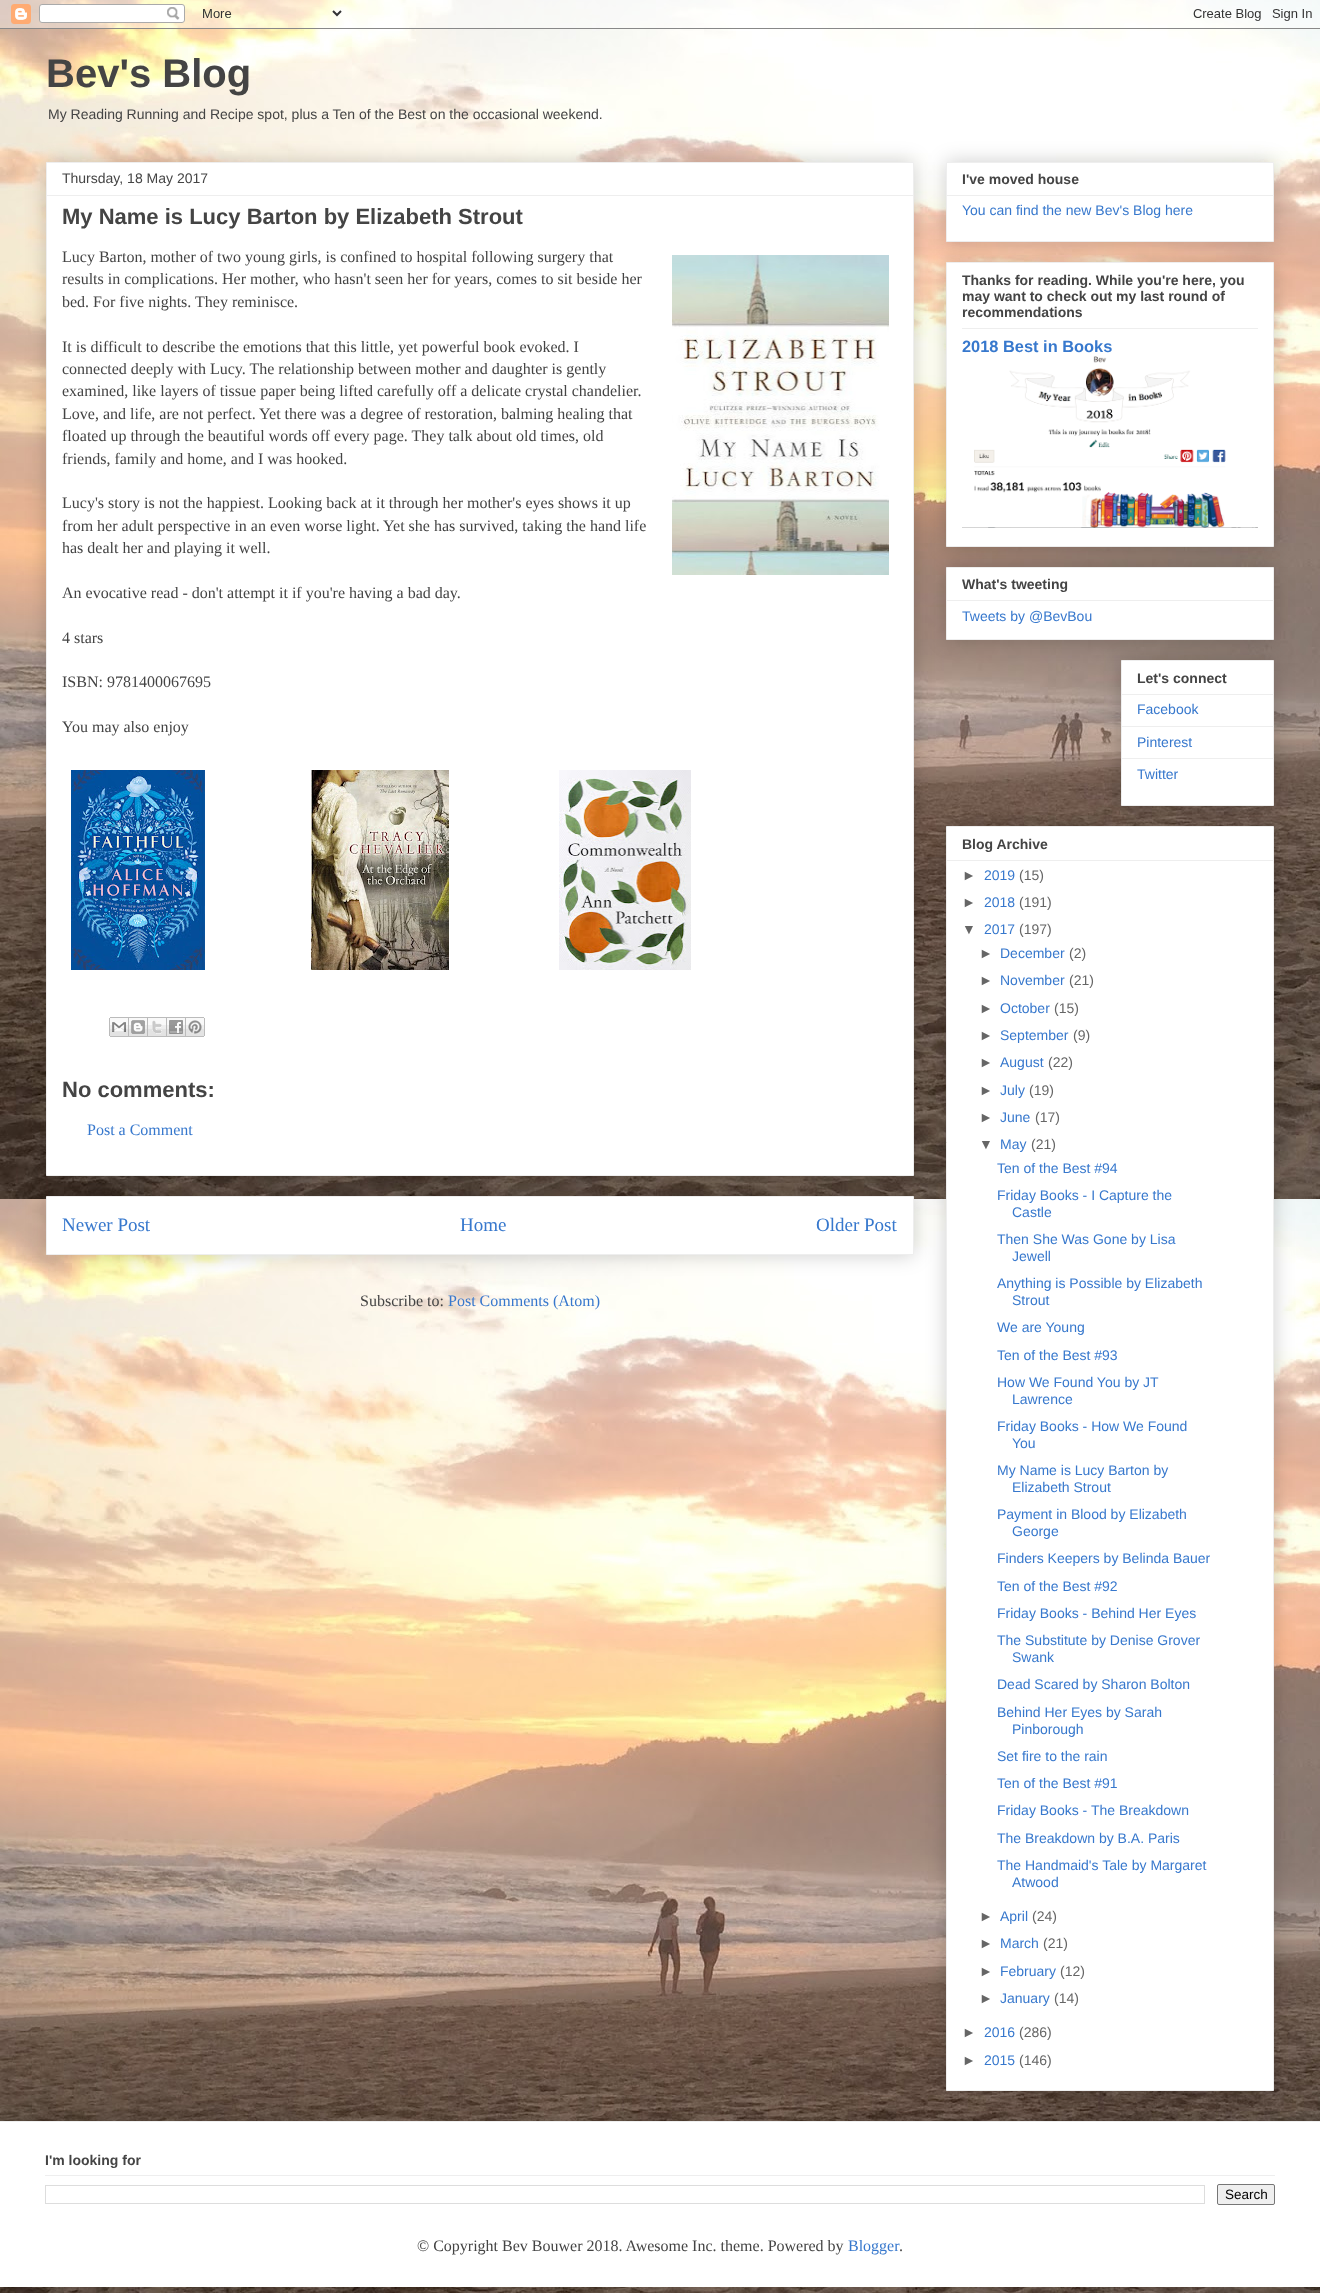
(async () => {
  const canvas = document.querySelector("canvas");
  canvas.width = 1320;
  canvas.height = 2293;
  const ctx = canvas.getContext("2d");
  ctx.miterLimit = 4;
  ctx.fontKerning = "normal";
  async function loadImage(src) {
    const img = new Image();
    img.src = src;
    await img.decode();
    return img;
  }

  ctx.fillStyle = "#ffffff";
  ctx.fillRect(0, 0, 1320, 2293);
  ctx.drawImage(await loadImage("img/1.png"), 0, 0, 1320, 2293);
  ctx.drawImage(await loadImage("img/2.png"), 0, 0, 1320, 29);
  ctx.fillStyle = "rgba(0, 0, 0, 0.2)";
  ctx.filter = "blur(10px)";
  ctx.beginPath();
  ctx.rect(46, 1196, 868, 59);
  ctx.fill();
  ctx.filter = "none";
  ctx.fillStyle = "#ffffff";
  ctx.beginPath();
  ctx.rect(46.5, 1196.5, 867, 58);
  ctx.fill();
  ctx.strokeStyle = "#eeeeee";
  ctx.stroke();
  ctx.fillStyle = "rgba(0, 0, 0, 0.2)";
  ctx.filter = "blur(10px)";
  ctx.beginPath();
  ctx.rect(46, 162, 868, 1014);
  ctx.fill();
  ctx.filter = "none";
  ctx.fillStyle = "#ffffff";
  ctx.beginPath();
  ctx.rect(46.5, 162.5, 867, 1013);
  ctx.fill();
  ctx.stroke();
  ctx.fillStyle = "#eeeeee";
  ctx.fillRect(47, 195, 866, 1);
  ctx.drawImage(await loadImage("img/3.png"), 672, 255, 217, 320);
  ctx.drawImage(await loadImage("img/4.png"), 71, 770, 134, 200);
  ctx.drawImage(await loadImage("img/5.png"), 311, 770, 138, 200);
  ctx.drawImage(await loadImage("img/6.png"), 559, 770, 132, 200);
  ctx.drawImage(await loadImage("img/7.png"), 109, 1017, 20, 20);
  ctx.drawImage(await loadImage("img/8.png"), 129, 1017, 19, 20);
  ctx.drawImage(await loadImage("img/9.png"), 148, 1017, 19, 20);
  ctx.drawImage(await loadImage("img/10.png"), 167, 1017, 19, 20);
  ctx.drawImage(await loadImage("img/11.png"), 186, 1017, 19, 20);
  ctx.fillStyle = "rgba(0, 0, 0, 0.2)";
  ctx.filter = "blur(10px)";
  ctx.beginPath();
  ctx.rect(946, 162, 328, 80);
  ctx.fill();
  ctx.filter = "none";
  ctx.fillStyle = "#ffffff";
  ctx.beginPath();
  ctx.rect(946.5, 162.5, 327, 79);
  ctx.fill();
  ctx.stroke();
  ctx.fillStyle = "#eeeeee";
  ctx.fillRect(947, 195, 326, 1);
  ctx.fillStyle = "rgba(0, 0, 0, 0.2)";
  ctx.filter = "blur(10px)";
  ctx.beginPath();
  ctx.rect(946, 262, 328, 285);
  ctx.fill();
  ctx.filter = "none";
  ctx.fillStyle = "#ffffff";
  ctx.beginPath();
  ctx.rect(946.5, 262.5, 327, 284);
  ctx.fill();
  ctx.stroke();
  ctx.fillStyle = "#eeeeee";
  ctx.fillRect(962, 328, 296, 1);
  ctx.drawImage(await loadImage("img/12.png"), 962, 356, 296, 172);
  ctx.fillStyle = "rgba(0, 0, 0, 0.2)";
  ctx.filter = "blur(10px)";
  ctx.beginPath();
  ctx.rect(946, 567, 328, 73);
  ctx.fill();
  ctx.filter = "none";
  ctx.fillStyle = "#ffffff";
  ctx.beginPath();
  ctx.rect(946.5, 567.5, 327, 72);
  ctx.fill();
  ctx.stroke();
  ctx.fillStyle = "#eeeeee";
  ctx.fillRect(947, 600, 326, 1);
  ctx.fillStyle = "rgba(0, 0, 0, 0.2)";
  ctx.filter = "blur(10px)";
  ctx.beginPath();
  ctx.rect(1121, 660, 153, 146);
  ctx.fill();
  ctx.filter = "none";
  ctx.fillStyle = "#ffffff";
  ctx.beginPath();
  ctx.rect(1121.5, 660.5, 152, 145);
  ctx.fill();
  ctx.stroke();
  for (const [x, y, w, h, color] of [
    [1122, 694, 151, 1, "#eeeeee"],
    [1122, 726, 151, 1, "#eeeeee"],
    [1122, 758, 151, 1, "#eeeeee"],
  ]) {
    ctx.fillStyle = color;
    ctx.fillRect(x, y, w, h);
  }
  ctx.fillStyle = "rgba(0, 0, 0, 0.2)";
  ctx.filter = "blur(10px)";
  ctx.beginPath();
  ctx.rect(946, 826, 328, 1265);
  ctx.fill();
  ctx.filter = "none";
  ctx.fillStyle = "#ffffff";
  ctx.beginPath();
  ctx.rect(946.5, 826.5, 327, 1264);
  ctx.fill();
  ctx.stroke();
  ctx.fillStyle = "#eeeeee";
  ctx.fillRect(947, 860, 326, 1);
  ctx.save();
  ctx.beginPath();
  ctx.rect(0, 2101, 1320, 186);
  ctx.clip();
  ctx.fillStyle = "rgba(0, 0, 0, 0.2)";
  ctx.filter = "blur(10px)";
  ctx.beginPath();
  ctx.rect(-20, 2121, 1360, 166);
  ctx.fill();
  ctx.filter = "none";
  ctx.restore();
  for (const [x, y, w, h, color] of [
    [0, 2122, 1320, 165, "#ffffff"],
    [0, 2121, 1320, 1, "#eeeeee"],
    [45, 2175, 1230, 1, "#eeeeee"],
  ]) {
    ctx.fillStyle = color;
    ctx.fillRect(x, y, w, h);
  }
  ctx.strokeStyle = "#dddddd";
  ctx.strokeRect(45.5, 2185.5, 1159, 18);
  ctx.fillStyle = "#efefef";
  ctx.beginPath();
  ctx.roundRect(1217.5, 2184.5, 57, 20, 1.5);
  ctx.fill();
  ctx.strokeStyle = "#767676";
  ctx.stroke();
  ctx.font = "bold 40px Liberation Sans";
  ctx.fillStyle = "#444444";
  ctx.fillText("Bev's Blog", 46, 87);
  ctx.font = "14px Liberation Sans";
  ctx.fillText("My Reading Running and Recipe spot, plus a Ten of the Best on the occasional weekend.", 48, 119);
  ctx.fillText("Thursday, 18 May 2017", 62, 183);
  ctx.font = "bold 22px Liberation Sans";
  ctx.fillText("My Name is Lucy Barton by Elizabeth Strout", 62, 224);
  ctx.font = "16px Liberation Serif";
  for (const [text, x, y] of [
    ["Lucy Barton, mother of two young girls, is confined to hospital following surgery that", 62, 262],
    ["results in complications. Her mother, who hasn't seen her for years, comes to sit beside her", 62, 284],
    ["bed. For five nights. They reminisce.", 62, 307],
    ["It is difficult to describe the emotions that this little, yet powerful book evoked. I", 62, 352],
    ["connected deeply with Lucy. The relationship between mother and daughter is gently", 62, 374],
    ["examined, like layers of tissue paper being lifted carefully off a delicate crystal chandelier.", 62, 396],
    ["Love, and life, are not perfect. Yet there was a degree of restoration, balming healing that", 62, 419],
    ["floated up through the beautiful words off every page. They talk about old times, old", 62, 441],
    ["friends, family and home, and I was hooked.", 62, 464],
    ["Lucy's story is not the happiest. Looking back at it through her mother's eyes shows it up", 62, 508],
    ["from her adult perspective in an even worse light. Yet she has survived, taking the hand life", 62, 531],
    ["has dealt her and playing it well.", 62, 553],
    ["An evocative read - don't attempt it if you're having a bad day.", 62, 598],
    ["4 stars", 62, 643],
    ["ISBN: 9781400067695", 62, 687],
    ["You may also enjoy", 62, 732],
  ]) {
    ctx.fillText(text, x, y);
  }
  ctx.font = "bold 22px Liberation Sans";
  ctx.fillText("No comments:", 62, 1097);
  ctx.font = "16px Liberation Serif";
  ctx.fillStyle = "#3778cd";
  ctx.fillText("Post a Comment", 87, 1135);
  ctx.font = "19px Liberation Serif";
  for (const [text, x, y] of [
    ["Newer Post", 62, 1231],
    ["Home", 460, 1231],
    ["Older Post", 816, 1231],
  ]) {
    ctx.fillText(text, x, y);
  }
  ctx.font = "16px Liberation Serif";
  ctx.fillStyle = "#444444";
  ctx.fillText("Subscribe to:", 360, 1306);
  ctx.fillStyle = "#3778cd";
  ctx.fillText("Post Comments (Atom)", 448, 1306);
  ctx.font = "bold 14px Liberation Sans";
  ctx.fillStyle = "#444444";
  ctx.fillText("I've moved house", 962, 184);
  ctx.font = "14px Liberation Sans";
  ctx.fillStyle = "#3778cd";
  ctx.fillText("You can find the new Bev's Blog here", 962, 215);
  ctx.font = "bold 14px Liberation Sans";
  ctx.fillStyle = "#444444";
  for (const [text, x, y] of [
    ["Thanks for reading. While you're here, you", 962, 285],
    ["may want to check out my last round of", 962, 301],
    ["recommendations", 962, 317],
  ]) {
    ctx.fillText(text, x, y);
  }
  ctx.font = "bold 16.4px Liberation Sans";
  ctx.fillStyle = "#3778cd";
  ctx.fillText("2018 Best in Books", 962, 352);
  ctx.font = "bold 14px Liberation Sans";
  ctx.fillStyle = "#444444";
  ctx.fillText("What's tweeting", 962, 589);
  ctx.font = "14px Liberation Sans";
  ctx.fillStyle = "#3778cd";
  ctx.fillText("Tweets by @BevBou", 962, 621);
  ctx.font = "bold 14px Liberation Sans";
  ctx.fillStyle = "#444444";
  ctx.fillText("Let's connect", 1137, 683);
  ctx.font = "14px Liberation Sans";
  ctx.fillStyle = "#3778cd";
  for (const [text, x, y] of [
    ["Facebook", 1137, 714],
    ["Pinterest", 1137, 747],
    ["Twitter", 1137, 779],
  ]) {
    ctx.fillText(text, x, y);
  }
  ctx.font = "bold 14px Liberation Sans";
  ctx.fillStyle = "#444444";
  ctx.fillText("Blog Archive", 962, 849);
  ctx.font = "14px Liberation Sans";
  ctx.fillStyle = "#666666";
  ctx.fillText("►", 962, 880);
  ctx.fillStyle = "#3778cd";
  ctx.fillText("2019", 984, 880);
  ctx.fillStyle = "#666666";
  ctx.fillText("(15)", 1019, 880);
  ctx.fillText("►", 962, 907);
  ctx.fillStyle = "#3778cd";
  ctx.fillText("2018", 984, 907);
  ctx.fillStyle = "#666666";
  ctx.fillText("(191)", 1019, 907);
  ctx.fillText("▼", 962, 934);
  ctx.fillStyle = "#3778cd";
  ctx.fillText("2017", 984, 934);
  ctx.fillStyle = "#666666";
  ctx.fillText("(197)", 1019, 934);
  ctx.fillText("►", 979, 958);
  ctx.fillStyle = "#3778cd";
  ctx.fillText("December", 1000, 958);
  ctx.fillStyle = "#666666";
  ctx.fillText("(2)", 1069, 958);
  ctx.fillText("►", 979, 985);
  ctx.fillStyle = "#3778cd";
  ctx.fillText("November", 1000, 985);
  ctx.fillStyle = "#666666";
  ctx.fillText("(21)", 1069, 985);
  ctx.fillText("►", 979, 1013);
  ctx.fillStyle = "#3778cd";
  ctx.fillText("October", 1000, 1013);
  ctx.fillStyle = "#666666";
  ctx.fillText("(15)", 1054, 1013);
  ctx.fillText("►", 979, 1040);
  ctx.fillStyle = "#3778cd";
  ctx.fillText("September", 1000, 1040);
  ctx.fillStyle = "#666666";
  ctx.fillText("(9)", 1073, 1040);
  ctx.fillText("►", 979, 1067);
  ctx.fillStyle = "#3778cd";
  ctx.fillText("August", 1000, 1067);
  ctx.fillStyle = "#666666";
  ctx.fillText("(22)", 1048, 1067);
  ctx.fillText("►", 979, 1095);
  ctx.fillStyle = "#3778cd";
  ctx.fillText("July", 1000, 1095);
  ctx.fillStyle = "#666666";
  ctx.fillText("(19)", 1029, 1095);
  ctx.fillText("►", 979, 1122);
  ctx.fillStyle = "#3778cd";
  ctx.fillText("June", 1000, 1122);
  ctx.fillStyle = "#666666";
  ctx.fillText("(17)", 1035, 1122);
  ctx.fillText("▼", 979, 1149);
  ctx.fillStyle = "#3778cd";
  ctx.fillText("May", 1000, 1149);
  ctx.fillStyle = "#666666";
  ctx.fillText("(21)", 1031, 1149);
  ctx.fillStyle = "#3778cd";
  for (const [text, x, y] of [
    ["Ten of the Best #94", 997, 1173],
    ["Friday Books - I Capture the", 997, 1200],
    ["Castle", 1012, 1217],
    ["Then She Was Gone by Lisa", 997, 1244],
    ["Jewell", 1012, 1261],
    ["Anything is Possible by Elizabeth", 997, 1288],
    ["Strout", 1012, 1305],
    ["We are Young", 997, 1332],
    ["Ten of the Best #93", 997, 1360],
    ["How We Found You by JT", 997, 1387],
    ["Lawrence", 1012, 1404],
    ["Friday Books - How We Found", 997, 1431],
    ["You", 1012, 1448],
    ["My Name is Lucy Barton by", 997, 1475],
    ["Elizabeth Strout", 1012, 1492],
    ["Payment in Blood by Elizabeth", 997, 1519],
    ["George", 1012, 1536],
    ["Finders Keepers by Belinda Bauer", 997, 1563],
    ["Ten of the Best #92", 997, 1591],
    ["Friday Books - Behind Her Eyes", 997, 1618],
    ["The Substitute by Denise Grover", 997, 1645],
    ["Swank", 1012, 1662],
    ["Dead Scared by Sharon Bolton", 997, 1689],
    ["Behind Her Eyes by Sarah", 997, 1717],
    ["Pinborough", 1012, 1734],
    ["Set fire to the rain", 997, 1761],
    ["Ten of the Best #91", 997, 1788],
    ["Friday Books - The Breakdown", 997, 1815],
    ["The Breakdown by B.A. Paris", 997, 1843],
    ["The Handmaid's Tale by Margaret", 997, 1870],
    ["Atwood", 1012, 1887],
  ]) {
    ctx.fillText(text, x, y);
  }
  ctx.fillStyle = "#666666";
  ctx.fillText("►", 979, 1921);
  ctx.fillStyle = "#3778cd";
  ctx.fillText("April", 1000, 1921);
  ctx.fillStyle = "#666666";
  ctx.fillText("(24)", 1032, 1921);
  ctx.fillText("►", 979, 1948);
  ctx.fillStyle = "#3778cd";
  ctx.fillText("March", 1000, 1948);
  ctx.fillStyle = "#666666";
  ctx.fillText("(21)", 1043, 1948);
  ctx.fillText("►", 979, 1976);
  ctx.fillStyle = "#3778cd";
  ctx.fillText("February", 1000, 1976);
  ctx.fillStyle = "#666666";
  ctx.fillText("(12)", 1060, 1976);
  ctx.fillText("►", 979, 2003);
  ctx.fillStyle = "#3778cd";
  ctx.fillText("January", 1000, 2003);
  ctx.fillStyle = "#666666";
  ctx.fillText("(14)", 1054, 2003);
  ctx.fillText("►", 962, 2037);
  ctx.fillStyle = "#3778cd";
  ctx.fillText("2016", 984, 2037);
  ctx.fillStyle = "#666666";
  ctx.fillText("(286)", 1019, 2037);
  ctx.fillText("►", 962, 2065);
  ctx.fillStyle = "#3778cd";
  ctx.fillText("2015", 984, 2065);
  ctx.fillStyle = "#666666";
  ctx.fillText("(146)", 1019, 2065);
  ctx.font = "bold 14px Liberation Sans";
  ctx.fillStyle = "#444444";
  ctx.fillText("I'm looking for", 45, 2165);
  ctx.font = "13.5px Liberation Sans";
  ctx.fillStyle = "#000000";
  ctx.fillText("Search", 1225, 2199);
  ctx.font = "16px Liberation Serif";
  ctx.fillStyle = "#444444";
  ctx.fillText("© Copyright Bev Bouwer 2018. Awesome Inc. theme. Powered by", 417, 2251);
  ctx.fillStyle = "#3778cd";
  ctx.fillText("Blogger", 848, 2251);
  ctx.fillStyle = "#444444";
  ctx.fillText(".", 899, 2251);
})();
